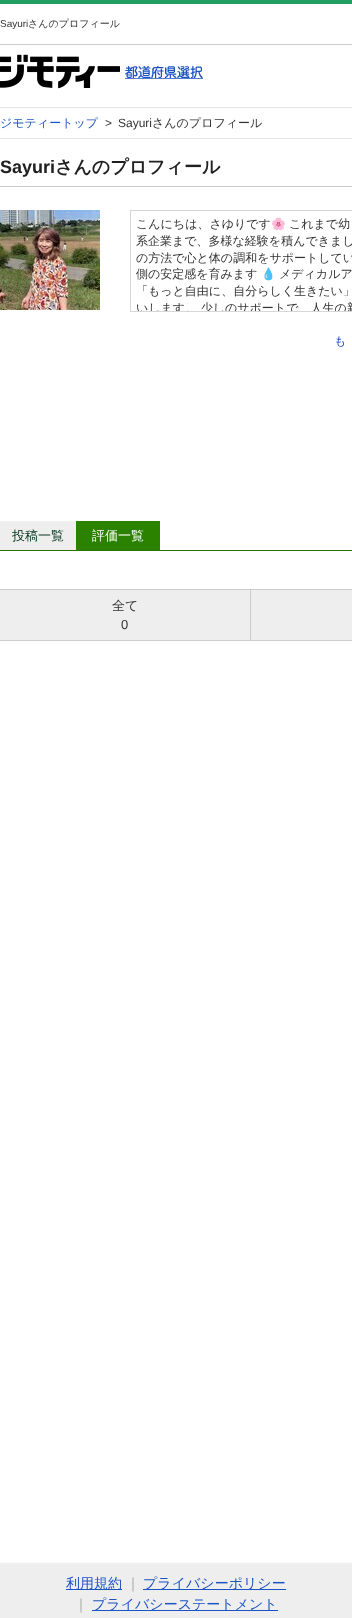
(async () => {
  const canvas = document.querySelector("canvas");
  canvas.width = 352;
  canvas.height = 1618;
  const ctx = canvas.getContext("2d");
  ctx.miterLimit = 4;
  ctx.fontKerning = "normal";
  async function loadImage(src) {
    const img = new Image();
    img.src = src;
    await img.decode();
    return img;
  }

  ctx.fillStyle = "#ffffff";
  ctx.fillRect(0, 0, 352, 1618);
  ctx.fillStyle = "#219e62";
  ctx.fillRect(0, 0, 352, 4);
  ctx.fillStyle = "#cccccc";
  ctx.fillRect(0, 44, 352, 1);
  ctx.drawImage(await loadImage("img/1.png"), 0, 54, 120, 35);
  ctx.drawImage(await loadImage("img/2.png"), 125, 66, 78, 13);
  for (const [x, y, w, h, color] of [
    [0, 107, 352, 1, "#e5e5e5"],
    [0, 138, 352, 1, "#e5e5e5"],
    [0, 186, 352, 1, "#c9c9c9"],
  ]) {
    ctx.fillStyle = color;
    ctx.fillRect(x, y, w, h);
  }
  ctx.drawImage(await loadImage("img/3.png"), 0, 210, 100, 100);
  ctx.strokeStyle = "#d7d7d7";
  ctx.strokeRect(130.5, 210.5, 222, 101);
  for (const [x, y, w, h, color] of [
    [0, 550, 352, 1, "#267300"],
    [0, 521, 76, 29, "#eeeeef"],
    [76, 521, 84, 29, "#2b8200"],
    [0, 589, 352, 1, "#cccccc"],
    [0, 590, 250, 50, "#eeeeee"],
    [0, 640, 352, 1, "#cccccc"],
    [251, 590, 101, 50, "#eeeeee"],
    [250, 590, 1, 51, "#cccccc"],
    [0, 1563, 352, 55, "#eeeeef"],
    [66, 1589, 56, 1, "#1c53c3"],
    [143, 1589, 143, 1, "#1c53c3"],
    [92, 1610, 186, 1, "#1c53c3"],
  ]) {
    ctx.fillStyle = color;
    ctx.fillRect(x, y, w, h);
  }
  ctx.font = "10px Liberation Sans";
  ctx.fillStyle = "#333333";
  ctx.fillText("Sayuri", 0, 27);
  ctx.font = "500 10px WenQuanYi Zen Hei";
  ctx.fillText("さんのプロフィール", 28, 27);
  ctx.font = "500 12px WenQuanYi Zen Hei";
  ctx.fillStyle = "#1c53c3";
  ctx.fillText("ジモティートップ", 0, 127);
  ctx.font = "12px Liberation Sans";
  ctx.fillStyle = "#333333";
  ctx.fillText(">", 105, 127);
  ctx.fillText("Sayuri", 118, 127);
  ctx.font = "500 12px WenQuanYi Zen Hei";
  ctx.fillText("さんのプロフィール", 152, 127);
  ctx.font = "bold 18px Liberation Sans";
  ctx.fillStyle = "#202020";
  ctx.fillText("Sayuri", 0, 173);
  ctx.font = "bold 18px WenQuanYi Zen Hei";
  ctx.fillText("さんのプロフィール", 55, 173);
  ctx.font = "500 12px WenQuanYi Zen Hei";
  ctx.fillStyle = "#333333";
  ctx.fillText("こんにちは、さゆりです", 136, 228);
  ctx.font = "12px Noto Color Emoji";
  ctx.fillText("🌸", 271, 228);
  ctx.font = "500 12px WenQuanYi Zen Hei";
  for (const [text, x, y] of [
    ["これまで幼", 289, 228],
    ["系企業まで、多様な経験を積んできまし", 136, 245],
    ["の方法で心と体の調和をサポートしてい", 136, 262],
    ["側の安定感を育みます", 136, 278],
  ]) {
    ctx.fillText(text, x, y);
  }
  ctx.font = "12px Noto Color Emoji";
  ctx.fillText("💧", 261, 278);
  ctx.font = "500 12px WenQuanYi Zen Hei";
  ctx.fillText("メディカルア", 279, 278);
  ctx.fillText("「もっと自由に、自分らしく生きたい」", 136, 295);
  ctx.save();
  ctx.beginPath();
  ctx.rect(131, 211, 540, 100);
  ctx.clip();
  ctx.fillText("いします。 少しのサポートで、人生の新", 136, 312);
  ctx.restore();
  ctx.fillStyle = "#1c53c3";
  ctx.fillText("も", 334, 345);
  ctx.font = "500 13px WenQuanYi Zen Hei";
  ctx.fillStyle = "#00351a";
  ctx.fillText("投稿一覧", 12, 540);
  ctx.fillStyle = "#ffffff";
  ctx.fillText("評価一覧", 92, 540);
  ctx.fillStyle = "#333333";
  ctx.fillText("全て", 112, 610);
  ctx.font = "13px Liberation Sans";
  ctx.fillText("0", 121, 629);
  ctx.font = "500 14px WenQuanYi Zen Hei";
  ctx.fillStyle = "#1c53c3";
  ctx.fillText("利用規約", 66, 1588);
  ctx.fillStyle = "#9e9e9f";
  ctx.fillText("｜", 126, 1588);
  ctx.fillStyle = "#1c53c3";
  ctx.fillText("プライバシーポリシー", 143, 1588);
  ctx.fillStyle = "#9e9e9f";
  ctx.fillText("｜", 74, 1609);
  ctx.fillStyle = "#1c53c3";
  ctx.fillText("プライバシーステートメント", 92, 1609);
})();
